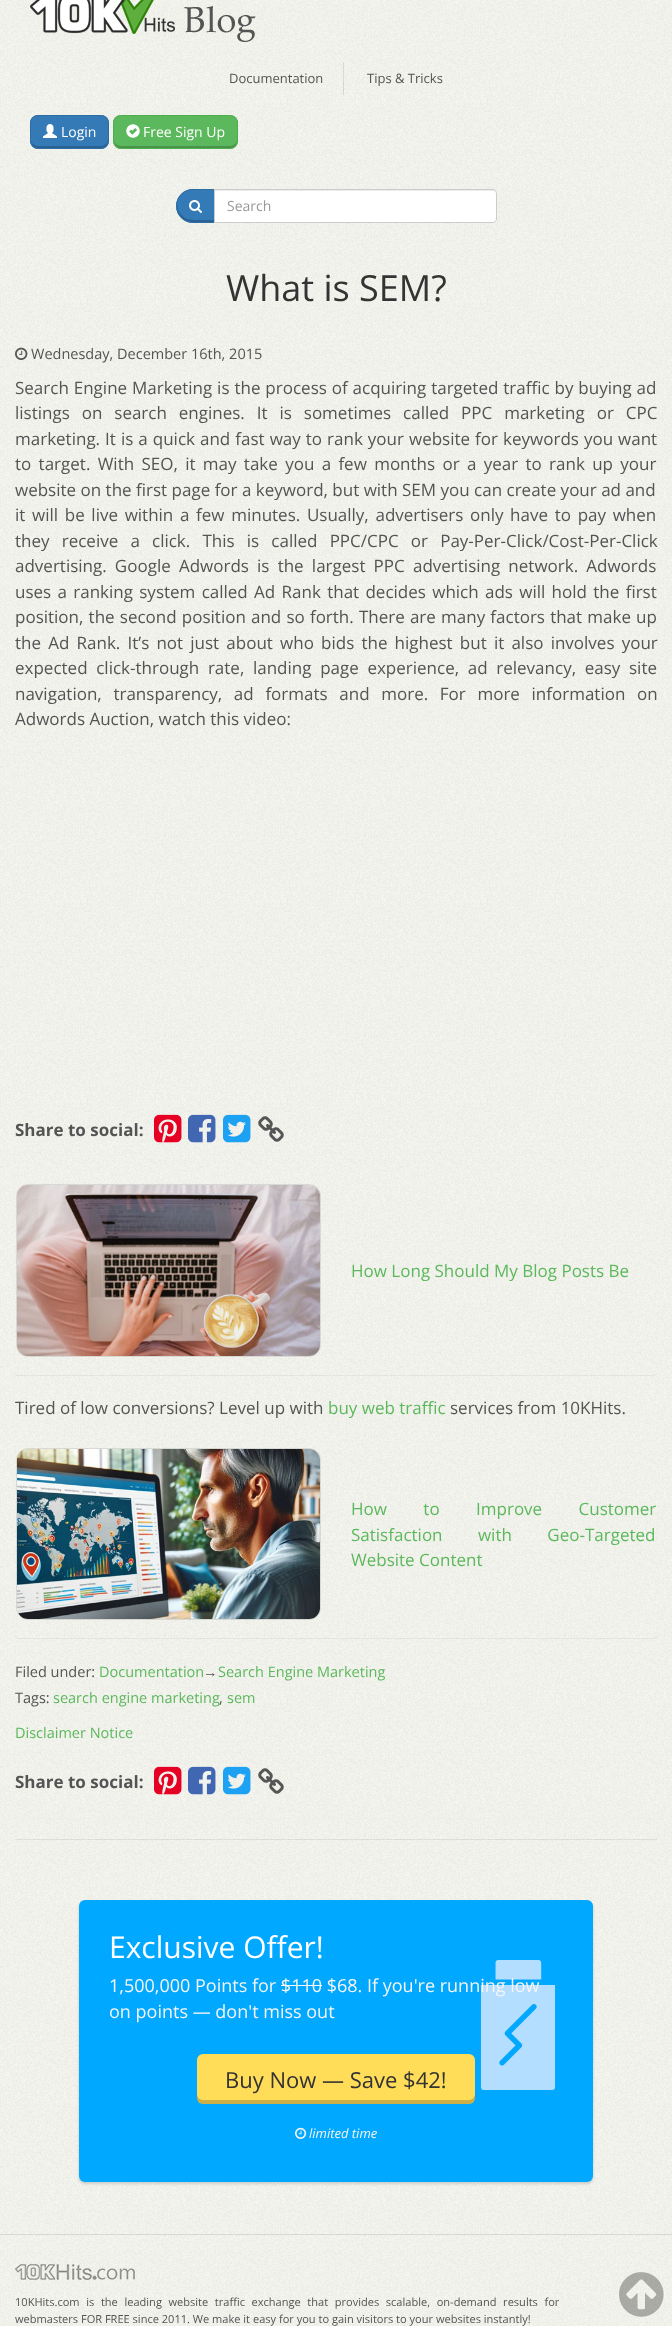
(async () => {
  const canvas = document.querySelector("canvas");
  canvas.width = 672;
  canvas.height = 2326;
  const ctx = canvas.getContext("2d");
  ctx.miterLimit = 4;
  ctx.fontKerning = "normal";
  async function loadImage(src) {
    const img = new Image();
    img.src = src;
    await img.decode();
    return img;
  }
  let path;

  ctx.fillStyle = "#ffffff";
  ctx.fillRect(0, 0, 672, 2326);
  ctx.drawImage(await loadImage("img/1.png"), 0, 0, 672, 2326);
  ctx.drawImage(await loadImage("img/2.png"), 30, 0, 226, 42);
  ctx.fillStyle = "rgba(0, 0, 0, 0.1)";
  ctx.fillRect(343, 62, 1, 33);
  ctx.fillStyle = "#337ab7";
  ctx.beginPath();
  ctx.roundRect(30, 115, 79, 34, 8);
  ctx.fill();
  ctx.fillStyle = "#296292";
  path = new Path2D("M31 139C31 150 39 148 48 148H90C100 148 108 150 108 139C108 143 105 146 101 146H38C34 146 31 143 31 139Z");
  ctx.fill(path);
  ctx.beginPath();
  ctx.roundRect(30.5, 115.5, 78, 33, 7.5);
  ctx.strokeStyle = "#2e6da4";
  ctx.stroke();
  ctx.drawImage(await loadImage("img/3.png"), 43, 124, 14, 14);
  ctx.fillStyle = "#5cb85c";
  ctx.beginPath();
  ctx.roundRect(113, 115, 125, 34, 8);
  ctx.fill();
  ctx.fillStyle = "#4a934a";
  path = new Path2D("M114 139C114 153 129 148 139 148H212C222 148 237 153 237 139C237 143 234 146 230 146H121C117 146 114 143 114 139Z");
  ctx.fill(path);
  ctx.beginPath();
  ctx.roundRect(113.5, 115.5, 124, 33, 7.5);
  ctx.strokeStyle = "#4cae4c";
  ctx.stroke();
  ctx.drawImage(await loadImage("img/4.png"), 126, 124, 14, 14);
  ctx.fillStyle = "#337ab7";
  ctx.beginPath();
  ctx.roundRect(176, 189, 39, 34, [17, 0, 0, 17]);
  ctx.fill();
  ctx.fillStyle = "#296292";
  path = new Path2D("M177.5 202.5L177 206C177 215 184 222 193 222H214V220H194L187 219C183.5 217.5 181 215 179 212C177.5 209 177 206 177.5 202.5Z");
  ctx.fill(path);
  ctx.beginPath();
  ctx.roundRect(176.5, 189.5, 38, 33, [16.5, 0, 0, 16.5]);
  ctx.strokeStyle = "#2e6da4";
  ctx.stroke();
  ctx.drawImage(await loadImage("img/5.png"), 189, 200, 13, 13);
  ctx.fillStyle = "#ffffff";
  ctx.beginPath();
  ctx.roundRect(214, 189, 283, 34, [0, 4, 4, 0]);
  ctx.fill();
  ctx.fillStyle = "#ececec";
  path = new Path2D("M215 191H493C495 191 496 192 496 194V193C496 191 495 190 493 190H215Z");
  ctx.fill(path);
  ctx.beginPath();
  ctx.roundRect(214.5, 189.5, 282, 33, [0, 3.5, 3.5, 0]);
  ctx.strokeStyle = "#cccccc";
  ctx.stroke();
  ctx.fillStyle = "rgba(0, 0, 0, 0.08)";
  ctx.fillRect(15, 1839, 642, 1);
  ctx.drawImage(await loadImage("img/6.png"), 15, 347, 13, 13);
  ctx.drawImage(await loadImage("img/7.png"), 154, 1114, 28, 29);
  ctx.drawImage(await loadImage("img/8.png"), 188, 1114, 28, 29);
  ctx.drawImage(await loadImage("img/9.png"), 223, 1114, 28, 29);
  ctx.drawImage(await loadImage("img/10.png"), 258, 1116, 26, 26);
  ctx.save();
  path = new Path2D("M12 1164H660V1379H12ZM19 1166H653C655 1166 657 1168 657 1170V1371C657 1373 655 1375 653 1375H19C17 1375 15 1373 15 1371V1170C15 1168 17 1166 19 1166Z");
  ctx.clip(path, "evenodd");
  ctx.fillStyle = "rgba(0, 0, 0, 0.05)";
  ctx.filter = "blur(0.5px)";
  ctx.beginPath();
  ctx.roundRect(15, 1167, 642, 209, 4);
  ctx.fill();
  ctx.filter = "none";
  ctx.restore();
  ctx.beginPath();
  ctx.roundRect(16.5, 1184.5, 304, 172, 11.5);
  ctx.strokeStyle = "rgba(0, 0, 0, 0.1)";
  ctx.stroke();
  ctx.drawImage(await loadImage("img/11.png"), 17, 1185, 303, 171);
  ctx.save();
  path = new Path2D("M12 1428H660V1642H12ZM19 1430H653C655 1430 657 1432 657 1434V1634C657 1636 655 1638 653 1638H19C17 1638 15 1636 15 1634V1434C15 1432 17 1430 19 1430Z");
  ctx.clip(path, "evenodd");
  ctx.fillStyle = "rgba(0, 0, 0, 0.05)";
  ctx.filter = "blur(0.5px)";
  ctx.beginPath();
  ctx.roundRect(15, 1431, 642, 208, 4);
  ctx.fill();
  ctx.filter = "none";
  ctx.restore();
  ctx.beginPath();
  ctx.roundRect(16.5, 1448.5, 304, 171, 11.5);
  ctx.stroke();
  ctx.drawImage(await loadImage("img/12.png"), 17, 1449, 303, 170);
  ctx.drawImage(await loadImage("img/13.png"), 154, 1766, 28, 29);
  ctx.drawImage(await loadImage("img/14.png"), 188, 1766, 28, 29);
  ctx.drawImage(await loadImage("img/15.png"), 223, 1766, 28, 29);
  ctx.drawImage(await loadImage("img/16.png"), 258, 1768, 26, 26);
  ctx.fillStyle = "#eeeeee";
  ctx.fillRect(15, 1818, 642, 1);
  ctx.fillStyle = "rgba(0, 0, 0, 0.15)";
  ctx.filter = "blur(1.5px)";
  ctx.beginPath();
  ctx.roundRect(79, 1902, 514, 282, 6);
  ctx.fill();
  ctx.filter = "none";
  ctx.fillStyle = "#00a8ff";
  ctx.beginPath();
  ctx.roundRect(79, 1900, 514, 282, 6);
  ctx.fill();
  ctx.drawImage(await loadImage("img/17.png"), 480, 1960, 76, 130);
  ctx.fillStyle = "#f5f5f5";
  ctx.fillRect(281, 1985, 41, 1);
  ctx.fillStyle = "#ffdd59";
  ctx.beginPath();
  ctx.roundRect(197, 2054, 278, 50, 6);
  ctx.fill();
  ctx.fillStyle = "rgba(0, 0, 0, 0.2)";
  path = new Path2D("M197 2094V2098C197 2101 200 2104 203 2104H469C472 2104 475 2101 475 2098V2094C475 2097 472 2100 469 2100H203C200 2100 197 2097 197 2094Z");
  ctx.fill(path);
  ctx.drawImage(await loadImage("img/18.png"), 295, 2127, 12, 12);
  ctx.fillStyle = "rgba(0, 0, 0, 0.1)";
  ctx.fillRect(0, 2234, 672, 1);
  ctx.drawImage(await loadImage("img/19.png"), 15, 2264, 120, 16);
  ctx.drawImage(await loadImage("img/20.png"), 619, 2272, 45, 45);
  ctx.font = "13px Open Sans";
  ctx.fillStyle = "#545454";
  ctx.fillText("Documentation", 229, 83);
  ctx.fillText("Tips & Tricks", 367, 83);
  ctx.font = "14px Open Sans";
  ctx.fillStyle = "#ffffff";
  ctx.fillText("Login", 61, 137);
  ctx.fillText("Free Sign Up", 143, 137);
  ctx.fillStyle = "#999999";
  ctx.fillText("Search", 227, 211);
  ctx.font = "36px Open Sans";
  ctx.fillStyle = "#333333";
  ctx.fillText("What is SEM?", 226, 301);
  ctx.font = "14.5px Open Sans";
  ctx.fillStyle = "#545454";
  ctx.fillText("Wednesday, December 16th, 2015", 31, 359);
  ctx.wordSpacing = "0.5px";
  ctx.font = "17px Open Sans";
  ctx.fillText("Search Engine Marketing is the process of acquiring targeted traffic by buying ad", 15, 394);
  ctx.wordSpacing = "7.5px";
  ctx.fillText("listings on search engines. It is sometimes called PPC marketing or CPC", 15, 419);
  ctx.wordSpacing = "0.6px";
  ctx.fillText("marketing. It is a quick and fast way to rank your website for keywords you want", 15, 445);
  ctx.wordSpacing = "2.9px";
  ctx.fillText("to target. With SEO, it may take you a few months or a year to rank up your", 15, 470);
  ctx.wordSpacing = "0px";
  ctx.fillText("website on the first page for a keyword, but with SEM you can create your ad and", 15, 496);
  ctx.wordSpacing = "2.25px";
  ctx.fillText("it will be live within a few minutes. Usually, advertisers only have to pay when", 15, 521);
  ctx.wordSpacing = "7.75px";
  ctx.fillText("they receive a click. This is called PPC/CPC or Pay-Per-Click/Cost-Per-Click", 15, 547);
  ctx.wordSpacing = "3.75px";
  ctx.fillText("advertising. Google Adwords is the largest PPC advertising network. Adwords", 15, 572);
  ctx.wordSpacing = "1.9px";
  ctx.fillText("uses a ranking system called Ad Rank that decides which ads will hold the first", 15, 598);
  ctx.wordSpacing = "0.75px";
  ctx.fillText("position, the second position and so forth. There are many factors that make up", 15, 623);
  ctx.wordSpacing = "2.75px";
  ctx.fillText("the Ad Rank. It’s not just about who bids the highest but it also involves your", 15, 649);
  ctx.wordSpacing = "4.25px";
  ctx.fillText("expected click-through rate, landing page experience, ad relevancy, easy site", 15, 674);
  ctx.wordSpacing = "7.25px";
  ctx.fillText("navigation, transparency, ad formats and more. For more information on", 15, 700);
  ctx.wordSpacing = "0px";
  ctx.fillText("Adwords Auction, watch this video:", 15, 725);
  ctx.font = "bold 17px Open Sans";
  ctx.fillText("Share to social:", 15, 1136);
  ctx.font = "17px Open Sans";
  ctx.fillStyle = "#5cb85c";
  ctx.fillText("How Long Should My Blog Posts Be", 351, 1277);
  ctx.fillStyle = "#545454";
  ctx.fillText("Tired of low conversions? Level up with", 15, 1414);
  ctx.fillStyle = "#5cb85c";
  ctx.fillText("buy web traffic", 328, 1414);
  ctx.fillStyle = "#545454";
  ctx.fillText("services from 10KHits.", 450, 1414);
  ctx.wordSpacing = "32px";
  ctx.fillStyle = "#5cb85c";
  ctx.fillText("How to Improve Customer", 351, 1515);
  ctx.wordSpacing = "31px";
  ctx.fillText("Satisfaction with Geo-Targeted", 351, 1541);
  ctx.wordSpacing = "0px";
  ctx.fillText("Website Content", 351, 1566);
  ctx.font = "14.5px Open Sans";
  ctx.fillStyle = "#545454";
  ctx.fillText("Filed under:", 15, 1677);
  ctx.fillStyle = "#5cb85c";
  ctx.fillText("Documentation", 99, 1677);
  ctx.font = "14.5px Liberation Sans";
  ctx.fillStyle = "#545454";
  ctx.fillText("→", 203, 1677);
  ctx.font = "14.5px Open Sans";
  ctx.fillStyle = "#5cb85c";
  ctx.fillText("Search Engine Marketing", 218, 1677);
  ctx.fillStyle = "#545454";
  ctx.fillText("Tags:", 15, 1703);
  ctx.fillStyle = "#5cb85c";
  ctx.fillText("search engine marketing", 53, 1703);
  ctx.fillStyle = "#545454";
  ctx.fillText(",", 219, 1703);
  ctx.fillStyle = "#5cb85c";
  ctx.fillText("sem", 227, 1703);
  ctx.fillText("Disclaimer Notice", 15, 1738);
  ctx.font = "bold 17px Open Sans";
  ctx.fillStyle = "#545454";
  ctx.fillText("Share to social:", 15, 1788);
  ctx.font = "30px Open Sans";
  ctx.fillStyle = "#ffffff";
  ctx.fillText("Exclusive Offer!", 109, 1958);
  ctx.font = "18px Open Sans";
  ctx.fillStyle = "#f5f5f5";
  ctx.fillText("1,500,000 Points for $110 $68. If you're running low", 109, 1992);
  ctx.fillText("on points — don't miss out", 109, 2018);
  ctx.font = "22px Open Sans";
  ctx.fillStyle = "#333333";
  ctx.fillText("Buy Now — Save $42!", 225, 2088);
  ctx.font = "italic 13px Open Sans";
  ctx.fillStyle = "#f5f5f5";
  ctx.fillText("limited time", 309, 2138);
  ctx.wordSpacing = "3.75px";
  ctx.font = "11.05px Open Sans";
  ctx.fillStyle = "#545454";
  ctx.fillText("10KHits.com is the leading website traffic exchange that provides scalable, on-demand results for", 15, 2306);
  ctx.wordSpacing = "0px";
  ctx.fillText("webmasters FOR FREE since 2011. We make it easy for you to gain visitors to your websites instantly!", 15, 2323);
})();
